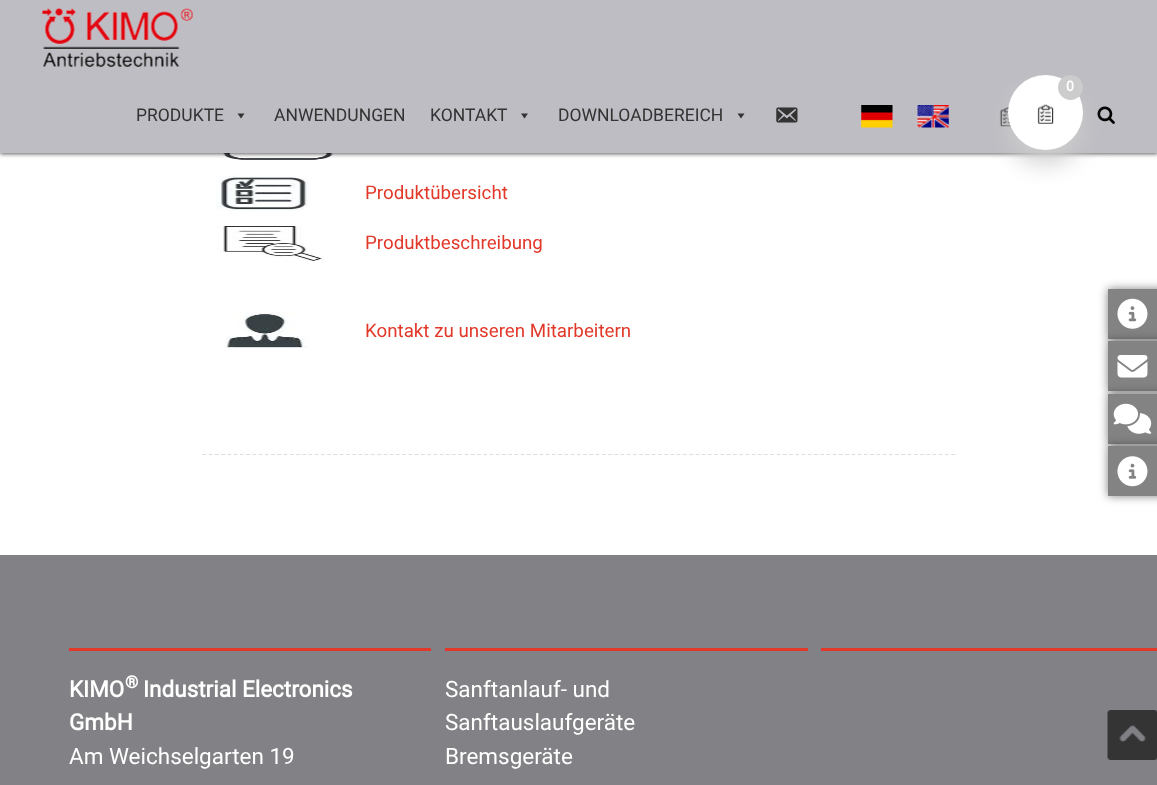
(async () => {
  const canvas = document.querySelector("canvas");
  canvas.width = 1157;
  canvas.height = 785;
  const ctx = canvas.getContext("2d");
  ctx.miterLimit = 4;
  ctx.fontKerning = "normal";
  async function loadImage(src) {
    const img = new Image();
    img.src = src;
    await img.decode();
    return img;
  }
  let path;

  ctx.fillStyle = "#ffffff";
  ctx.fillRect(0, 0, 1157, 785);
  ctx.drawImage(await loadImage("img/8.png"), 222, 153, 111, 7);
  ctx.fillStyle = "rgba(13, 13, 13, 0.68)";
  ctx.filter = "blur(2px)";
  ctx.beginPath();
  ctx.rect(0, 1, 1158, 153);
  ctx.fill();
  ctx.filter = "none";
  ctx.fillStyle = "#bebdc3";
  ctx.fillRect(0, 0, 1157, 153);
  ctx.drawImage(await loadImage("img/6.png"), 999, 107, 12, 20);
  ctx.drawImage(await loadImage("img/7.png"), 1097, 106, 18, 18);
  ctx.fillStyle = "#cccccc";
  ctx.filter = "blur(12.5px)";
  ctx.beginPath();
  ctx.roundRect(1008, 88, 75, 75, 37.5);
  ctx.fill();
  ctx.filter = "none";
  ctx.fillStyle = "#ffffff";
  ctx.beginPath();
  ctx.arc(1045.5, 112.5, 37.5, 0, Math.PI * 2);
  ctx.fill();
  ctx.fillStyle = "#cccccc";
  ctx.beginPath();
  ctx.arc(1070.5, 87.5, 12.5, 0, Math.PI * 2);
  ctx.fill();
  ctx.drawImage(await loadImage("img/1.png"), 1037, 104, 17, 20);
  ctx.drawImage(await loadImage("img/2.png"), 42, 7, 151, 60);
  ctx.fillStyle = "#333333";
  path = new Path2D("M244.5 113.5L241 118.5L237.5 113.5Z");
  ctx.fill(path);
  path = new Path2D("M528 113.5L524.5 118.5L521 113.5Z");
  ctx.fill(path);
  path = new Path2D("M744.5 113.5L741 118.5L737.5 113.5Z");
  ctx.fill(path);
  ctx.drawImage(await loadImage("img/3.png"), 776, 107, 22, 16);
  ctx.drawImage(await loadImage("img/4.png"), 861, 105, 32, 23);
  ctx.drawImage(await loadImage("img/5.png"), 917, 105, 32, 23);
  path = new Path2D("M202.5 454.5H955");
  ctx.strokeStyle = "#dddddd";
  ctx.lineWidth = 1.2;
  ctx.setLineDash([3.75, 2.49]);
  ctx.stroke(path);
  ctx.drawImage(await loadImage("img/9.png"), 215, 175, 93, 36);
  ctx.drawImage(await loadImage("img/10.png"), 215, 226, 109, 35);
  ctx.drawImage(await loadImage("img/11.png"), 225, 312, 83, 36);
  for (const [x, y, w, h, color] of [
    [0, 555, 1157, 230, "#828286"],
    [821, 648, 336, 3, "#e2382a"],
    [69, 648, 362, 3, "#e2382a"],
    [445, 648, 363, 3, "#e2382a"],
  ]) {
    ctx.fillStyle = color;
    ctx.fillRect(x, y, w, h);
  }
  ctx.fillStyle = "rgba(0, 0, 0, 0.5)";
  ctx.filter = "blur(5px)";
  ctx.beginPath();
  ctx.rect(1108, 289, 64, 50);
  ctx.fill();
  ctx.filter = "none";
  ctx.fillStyle = "#838383";
  ctx.fillRect(1108, 289, 49, 50);
  ctx.drawImage(await loadImage("img/12.png"), 1117, 298, 31, 31);
  ctx.fillStyle = "rgba(0, 0, 0, 0.5)";
  ctx.filter = "blur(5px)";
  ctx.beginPath();
  ctx.rect(1108, 341, 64, 50);
  ctx.fill();
  ctx.filter = "none";
  ctx.fillStyle = "#838383";
  ctx.fillRect(1108, 341, 49, 50);
  ctx.drawImage(await loadImage("img/13.png"), 1117, 355, 31, 23);
  ctx.fillStyle = "rgba(0, 0, 0, 0.5)";
  ctx.filter = "blur(5px)";
  ctx.beginPath();
  ctx.rect(1108, 394, 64, 50);
  ctx.fill();
  ctx.filter = "none";
  ctx.fillStyle = "#838383";
  ctx.fillRect(1108, 394, 49, 50);
  ctx.drawImage(await loadImage("img/14.png"), 1113, 403, 39, 31);
  ctx.fillStyle = "rgba(0, 0, 0, 0.5)";
  ctx.filter = "blur(5px)";
  ctx.beginPath();
  ctx.rect(1108, 446, 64, 50);
  ctx.fill();
  ctx.filter = "none";
  ctx.fillStyle = "#838383";
  ctx.fillRect(1108, 446, 49, 50);
  ctx.drawImage(await loadImage("img/15.png"), 1117, 456, 31, 31);
  ctx.drawImage(await loadImage("img/16.png"), 1107, 710, 50, 50);
  ctx.font = "bold 14px Roboto";
  ctx.fillStyle = "#ffffff";
  ctx.fillText("0", 1066, 91);
  ctx.font = "17.5px Roboto";
  ctx.fillStyle = "#333333";
  for (const [text, x, y] of [
    ["PRODUKTE", 136, 121],
    ["ANWENDUNGEN", 274, 121],
    ["KONTAKT", 430, 121],
    ["DOWNLOADBEREICH", 558, 121],
  ]) {
    ctx.fillText(text, x, y);
  }
  ctx.font = "18.75px Roboto";
  ctx.fillStyle = "#e2382a";
  for (const [text, x, y] of [
    ["Produktübersicht", 365, 199],
    ["Produktbeschreibung", 365, 249],
    ["Kontakt zu unseren Mitarbeitern", 365, 337],
  ]) {
    ctx.fillText(text, x, y);
  }
  ctx.font = "bold 22.5px Roboto";
  ctx.fillStyle = "#ffffff";
  ctx.fillText("KIMO", 69, 697);
  ctx.font = "bold 17px Roboto";
  ctx.fillText("®", 125, 688);
  ctx.font = "bold 22.5px Roboto";
  ctx.fillText("Industrial Electronics", 143, 697);
  ctx.fillText("GmbH", 69, 730);
  ctx.font = "22.5px Roboto";
  for (const [text, x, y] of [
    ["Am Weichselgarten 19", 69, 764],
    ["Sanftanlauf- und", 445, 697],
    ["Sanftauslaufgeräte", 445, 730],
    ["Bremsgeräte", 445, 764],
  ]) {
    ctx.fillText(text, x, y);
  }
})();
